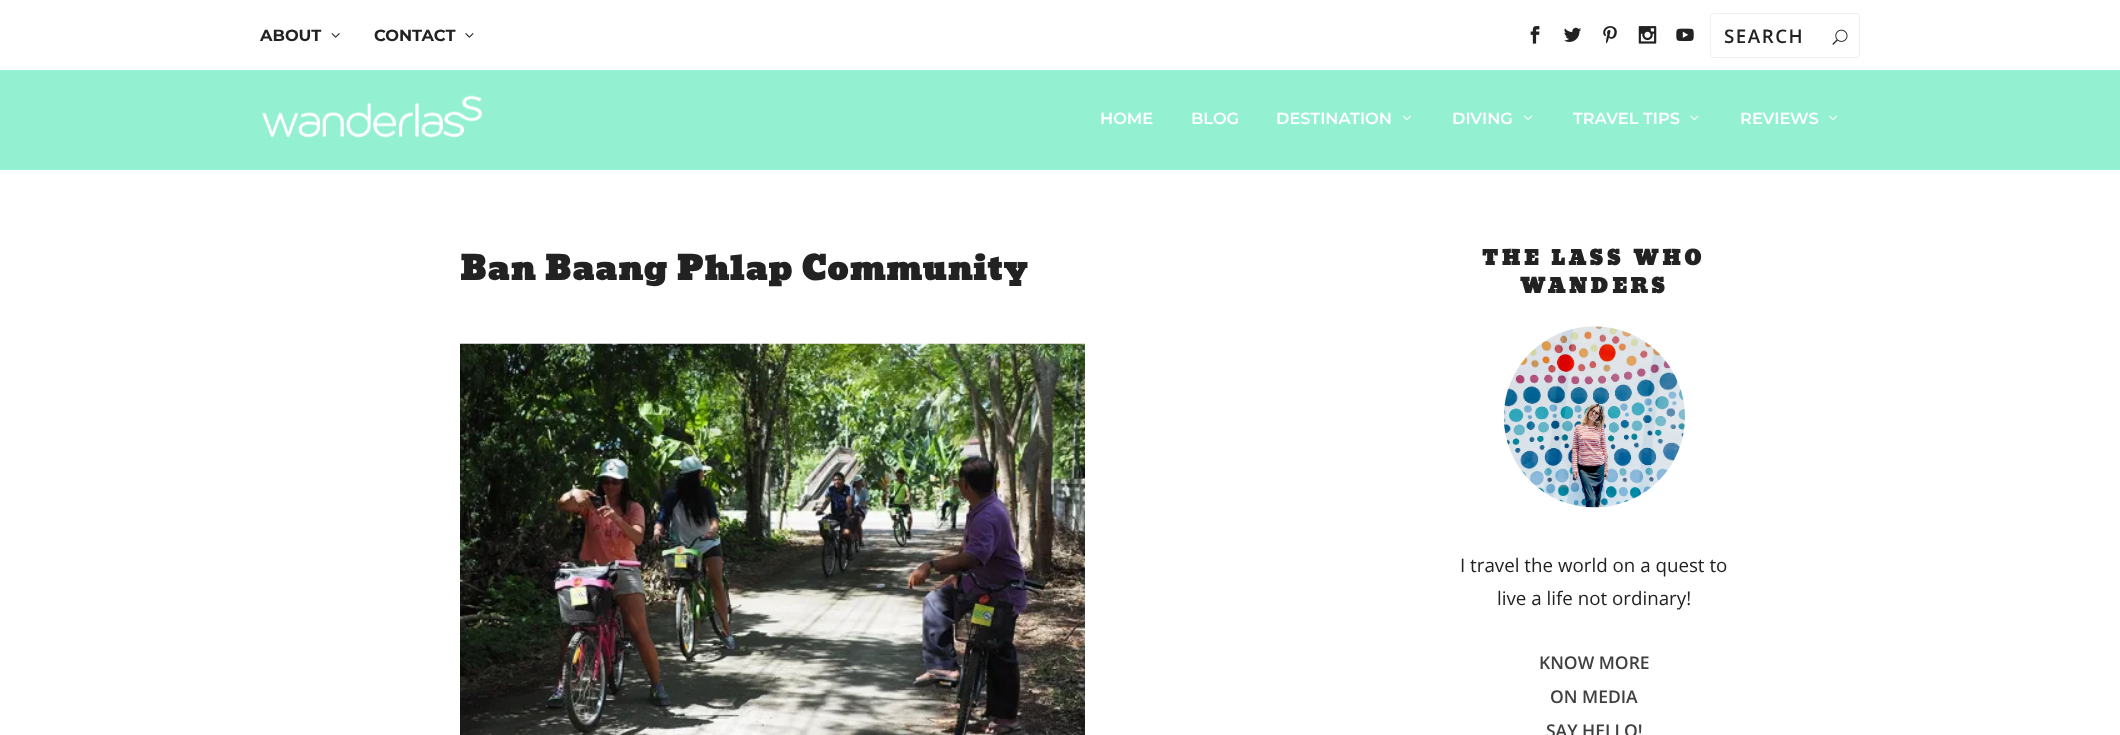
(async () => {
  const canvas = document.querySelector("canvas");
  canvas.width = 2120;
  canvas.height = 735;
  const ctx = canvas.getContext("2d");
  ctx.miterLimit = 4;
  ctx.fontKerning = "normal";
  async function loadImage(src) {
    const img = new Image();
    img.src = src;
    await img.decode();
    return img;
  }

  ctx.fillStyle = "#ffffff";
  ctx.fillRect(0, 0, 2120, 735);
  ctx.drawImage(await loadImage("img/1.png"), 331, 33, 9, 5);
  ctx.drawImage(await loadImage("img/2.png"), 465, 33, 9, 5);
  ctx.drawImage(await loadImage("img/3.png"), 1530, 26, 10, 18);
  ctx.drawImage(await loadImage("img/4.png"), 1564, 27, 18, 15);
  ctx.drawImage(await loadImage("img/5.png"), 1603, 26, 14, 18);
  ctx.drawImage(await loadImage("img/6.png"), 1638, 26, 19, 18);
  ctx.drawImage(await loadImage("img/7.png"), 1676, 28, 18, 14);
  ctx.beginPath();
  ctx.roundRect(1710.5, 13.5, 149, 44, 3.5);
  ctx.strokeStyle = "#eeeeee";
  ctx.stroke();
  ctx.drawImage(await loadImage("img/8.png"), 1832, 29, 16, 16);
  ctx.fillStyle = "#93f1d1";
  ctx.fillRect(0, 70, 2120, 100);
  ctx.drawImage(await loadImage("img/9.png"), 262, 95, 220, 43);
  ctx.drawImage(await loadImage("img/10.png"), 1402, 115, 9, 6);
  ctx.drawImage(await loadImage("img/11.png"), 1524, 115, 9, 6);
  ctx.drawImage(await loadImage("img/12.png"), 1690, 115, 9, 6);
  ctx.drawImage(await loadImage("img/11.png"), 1829, 115, 9, 6);
  ctx.drawImage(await loadImage("img/13.png"), 460, 343, 625, 392);
  ctx.drawImage(await loadImage("img/14.png"), 1504, 326, 181, 182);
  ctx.font = "bold 16.25px Montserrat";
  ctx.fillStyle = "#222222";
  ctx.fillText("ABOUT", 260, 41);
  ctx.fillText("CONTACT", 374, 41);
  ctx.letterSpacing = "1.5px";
  ctx.font = "600 18.75px Open Sans";
  ctx.fillText("SEARCH", 1724, 43);
  ctx.letterSpacing = "0px";
  ctx.font = "600 16.25px Montserrat";
  ctx.fillStyle = "#ffffff";
  for (const [text, x, y] of [
    ["HOME", 1100, 124],
    ["BLOG", 1191, 124],
    ["DESTINATION", 1276, 124],
    ["DIVING", 1452, 124],
    ["TRAVEL TIPS", 1573, 124],
    ["REVIEWS", 1740, 124],
  ]) {
    ctx.fillText(text, x, y);
  }
  ctx.letterSpacing = "0.6px";
  ctx.font = "bold 32.5px Angkor";
  ctx.fillStyle = "#222222";
  ctx.fillText("Ban Baang Phlap Community", 460, 280);
  ctx.letterSpacing = "3.75px";
  ctx.font = "bold 20px Angkor";
  ctx.fillText("THE LASS WHO", 1482, 265);
  ctx.fillText("WANDERS", 1520, 293);
  ctx.letterSpacing = "0px";
  ctx.font = "18.75px Open Sans";
  ctx.fillText("I travel the world on a quest to", 1460, 572);
  ctx.fillText("live a life not ordinary!", 1497, 605);
  ctx.font = "600 17.5px Open Sans";
  ctx.fillStyle = "#404040";
  for (const [text, x, y] of [
    ["KNOW MORE", 1539, 669],
    ["ON MEDIA", 1550, 703],
    ["SAY HELLO!", 1546, 737],
  ]) {
    ctx.fillText(text, x, y);
  }
})();
